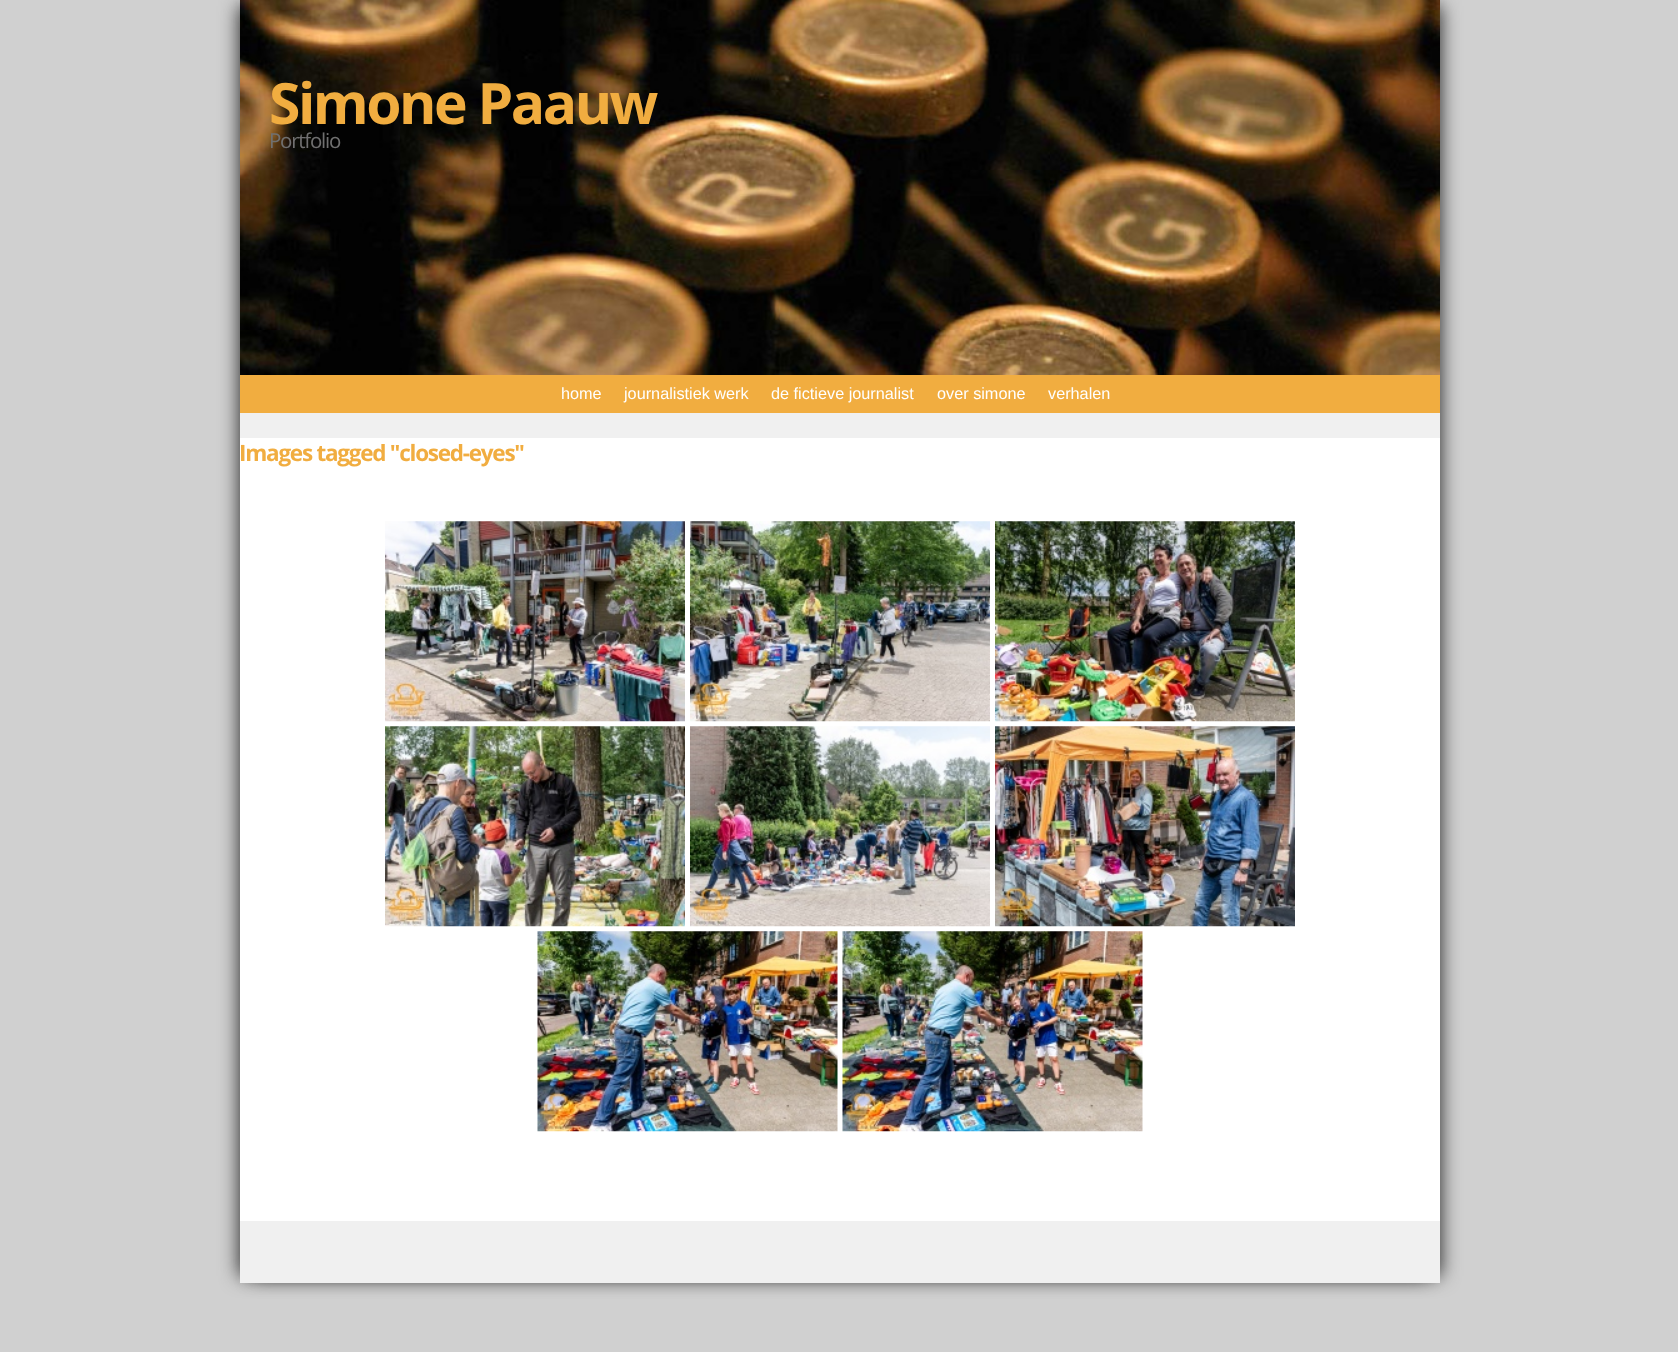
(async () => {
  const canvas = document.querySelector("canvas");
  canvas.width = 1678;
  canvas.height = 1352;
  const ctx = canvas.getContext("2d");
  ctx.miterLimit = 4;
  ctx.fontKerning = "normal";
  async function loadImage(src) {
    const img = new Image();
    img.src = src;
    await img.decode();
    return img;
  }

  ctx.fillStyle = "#d0d0d0";
  ctx.fillRect(0, 0, 1678, 1352);
  ctx.fillStyle = "#333333";
  ctx.filter = "blur(9.5px)";
  ctx.beginPath();
  ctx.rect(239, 6, 1187, 1270);
  ctx.fill();
  ctx.filter = "none";
  ctx.filter = "blur(9.5px)";
  ctx.beginPath();
  ctx.rect(254, 6, 1187, 1270);
  ctx.fill();
  ctx.filter = "none";
  ctx.fillStyle = "#f0f0f0";
  ctx.fillRect(240, 413, 1200, 870);
  ctx.drawImage(await loadImage("img/1.png"), 240, 0, 1200, 375);
  ctx.fillStyle = "#f1ad40";
  ctx.fillRect(240, 375, 1200, 38);
  ctx.fillStyle = "#ffffff";
  ctx.fillRect(240, 438, 1200, 783);
  ctx.drawImage(await loadImage("img/2.png"), 385, 521, 300, 201);
  ctx.drawImage(await loadImage("img/3.png"), 690, 521, 300, 201);
  ctx.drawImage(await loadImage("img/4.png"), 995, 521, 300, 201);
  ctx.drawImage(await loadImage("img/5.png"), 385, 726, 300, 201);
  ctx.drawImage(await loadImage("img/6.png"), 690, 726, 300, 201);
  ctx.drawImage(await loadImage("img/7.png"), 995, 726, 300, 201);
  ctx.drawImage(await loadImage("img/8.png"), 537, 931, 301, 201);
  ctx.drawImage(await loadImage("img/9.png"), 842, 931, 301, 201);
  ctx.letterSpacing = "-2.5px";
  ctx.font = "bold 57px Open Sans";
  ctx.fillStyle = "#f1ad40";
  ctx.fillText("Simone Paauw", 269, 124);
  ctx.letterSpacing = "-1.25px";
  ctx.font = "20.5px Open Sans";
  ctx.fillStyle = "#707070";
  ctx.fillText("Portfolio", 269, 148);
  ctx.letterSpacing = "0px";
  ctx.font = "16.25px Liberation Sans";
  ctx.fillStyle = "#ffffff";
  for (const [text, x, y] of [
    ["home", 561, 399],
    ["journalistiek werk", 624, 399],
    ["de fictieve journalist", 771, 399],
    ["over simone", 937, 399],
    ["verhalen", 1048, 399],
  ]) {
    ctx.fillText(text, x, y);
  }
  ctx.letterSpacing = "-1.25px";
  ctx.font = "bold 22.5px Open Sans";
  ctx.fillStyle = "#f1ad40";
  ctx.fillText("Images tagged \"closed-eyes\"", 239, 461);
})();
